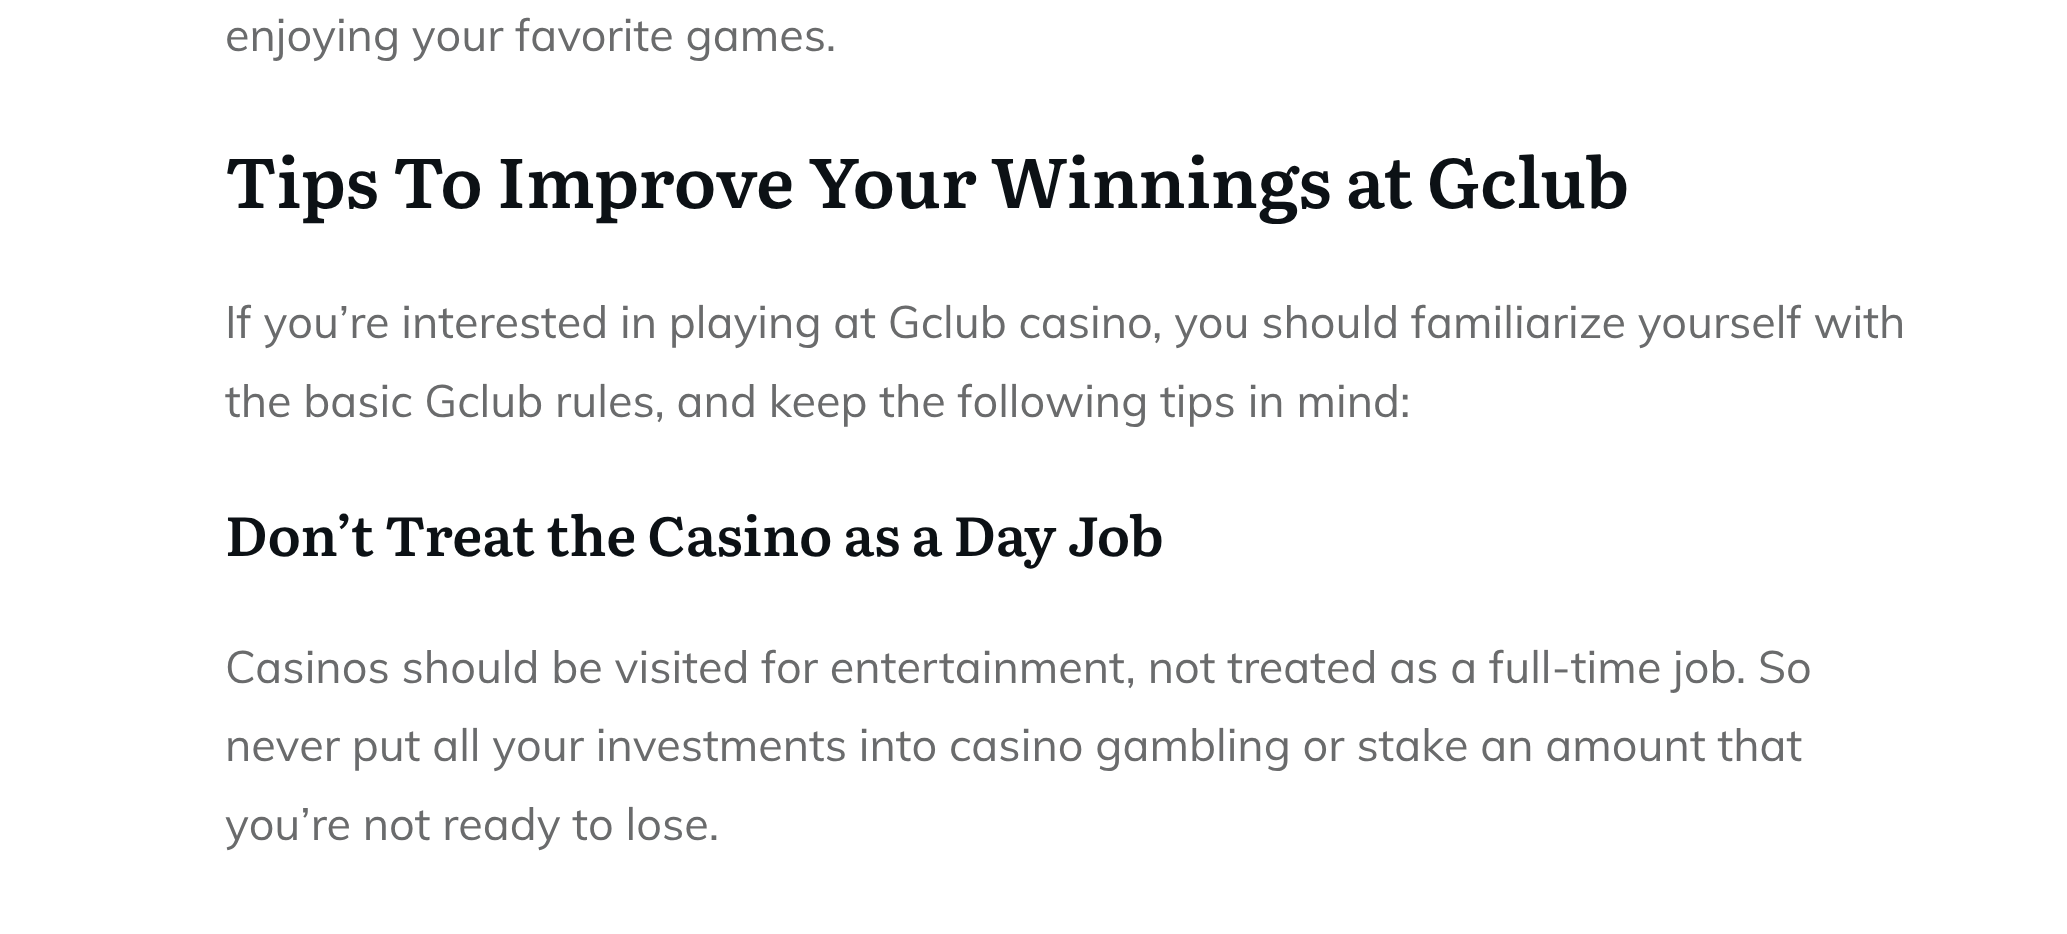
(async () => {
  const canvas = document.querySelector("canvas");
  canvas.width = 2067;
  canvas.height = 934;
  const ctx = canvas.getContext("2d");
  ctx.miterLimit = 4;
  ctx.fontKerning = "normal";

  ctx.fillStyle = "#ffffff";
  ctx.fillRect(0, 0, 2067, 934);
  ctx.font = "45px Muli";
  ctx.fillStyle = "#6a6b6c";
  ctx.fillText("enjoying your favorite games.", 225, 51);
  ctx.font = "600 70px Literata";
  ctx.fillStyle = "#0c1115";
  ctx.fillText("Tips To Improve Your Winnings at Gclub", 225, 208);
  ctx.font = "45px Muli";
  ctx.fillStyle = "#6a6b6c";
  ctx.fillText("If you’re interested in playing at Gclub casino, you should familiarize yourself with", 225, 338);
  ctx.fillText("the basic Gclub rules, and keep the following tips in mind:", 225, 417);
  ctx.font = "600 55px Literata";
  ctx.fillStyle = "#0c1115";
  ctx.fillText("Don’t Treat the Casino as a Day Job", 225, 556);
  ctx.font = "45px Muli";
  ctx.fillStyle = "#6a6b6c";
  for (const [text, x, y] of [
    ["Casinos should be visited for entertainment, not treated as a full-time job. So", 225, 683],
    ["never put all your investments into casino gambling or stake an amount that", 225, 761],
    ["you’re not ready to lose.", 225, 840],
  ]) {
    ctx.fillText(text, x, y);
  }
})();
